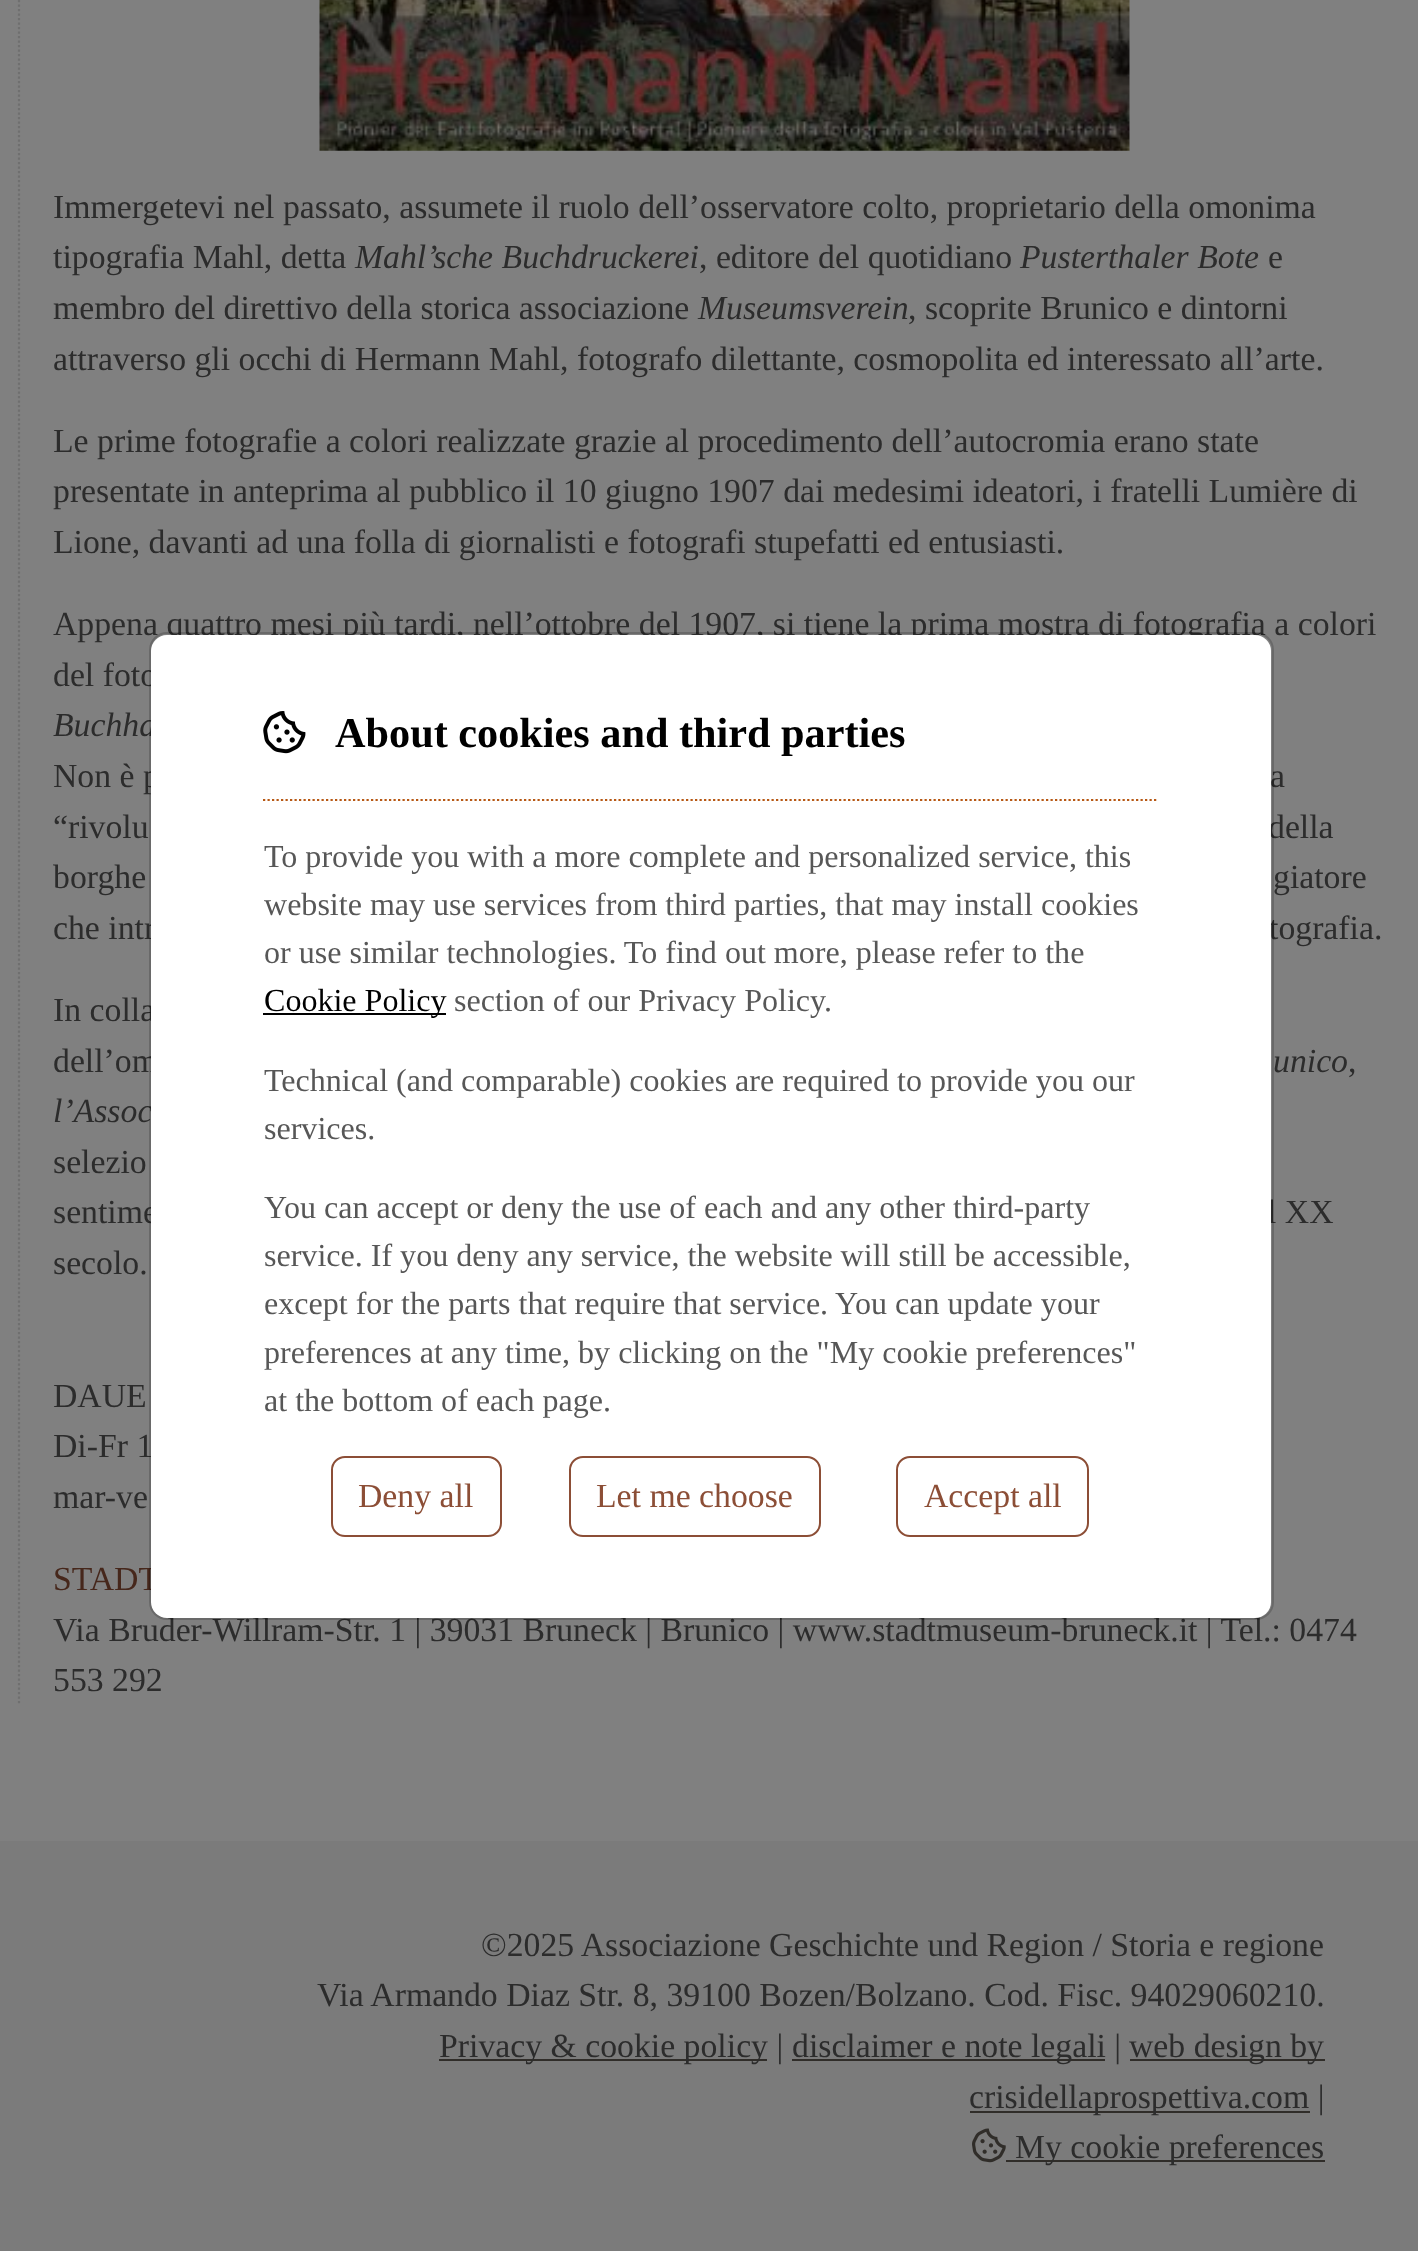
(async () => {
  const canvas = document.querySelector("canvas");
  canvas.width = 1418;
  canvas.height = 2251;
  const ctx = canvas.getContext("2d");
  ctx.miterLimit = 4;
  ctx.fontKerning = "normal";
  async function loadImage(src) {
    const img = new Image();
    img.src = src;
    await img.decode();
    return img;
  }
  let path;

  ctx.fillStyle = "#808080";
  ctx.fillRect(0, 0, 1418, 2251);
  path = new Path2D("M19-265.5V1705.5");
  ctx.strokeStyle = "#6f6f6f";
  ctx.lineWidth = 2.2;
  ctx.setLineDash([2.25, 2.25]);
  ctx.stroke(path);
  ctx.drawImage(await loadImage("img/1.png"), 319, 0, 811, 151);
  for (const [x, y, w, h, color] of [
    [0, 1841, 1418, 410, "#7b7b7b"],
    [439, 2059, 328, 2, "#302d29"],
    [792, 2059, 313, 2, "#302d29"],
    [1130, 2059, 195, 2, "#302d29"],
    [970, 2111, 340, 2, "#302d29"],
  ]) {
    ctx.fillStyle = color;
    ctx.fillRect(x, y, w, h);
  }
  ctx.drawImage(await loadImage("img/3.png"), 972, 2128, 34, 35);
  ctx.fillRect(1006, 2160, 319, 2);
  ctx.font = "33.75px Liberation Serif";
  ctx.fillStyle = "#2c2c2c";
  ctx.fillText("Immergetevi nel passato, assumete il ruolo dell’osservatore colto, proprietario della omonima", 53, 218);
  ctx.fillText("tipografia Mahl, detta", 53, 268);
  ctx.font = "italic 33.75px Liberation Serif";
  ctx.fillText("Mahl’sche Buchdruckerei", 355, 268);
  ctx.font = "33.75px Liberation Serif";
  ctx.fillText(", editore del quotidiano", 699, 268);
  ctx.font = "italic 33.75px Liberation Serif";
  ctx.fillText("Pusterthaler Bote", 1020, 268);
  ctx.font = "33.75px Liberation Serif";
  ctx.fillText("e", 1268, 268);
  ctx.fillText("membro del direttivo della storica associazione", 53, 319);
  ctx.font = "italic 33.75px Liberation Serif";
  ctx.fillText("Museumsverein", 698, 319);
  ctx.font = "33.75px Liberation Serif";
  for (const [text, x, y] of [
    [", scoprite Brunico e dintorni", 908, 319],
    ["attraverso gli occhi di Hermann Mahl, fotografo dilettante, cosmopolita ed interessato all’arte.", 53, 370],
    ["Le prime fotografie a colori realizzate grazie al procedimento dell’autocromia erano state", 53, 452],
    ["presentate in anteprima al pubblico il 10 giugno 1907 dai medesimi ideatori, i fratelli Lumière di", 53, 502],
    ["Lione, davanti ad una folla di giornalisti e fotografi stupefatti ed entusiasti.", 53, 553],
    ["Appena quattro mesi più tardi, nell’ottobre del 1907, si tiene la prima mostra di fotografia a colori", 53, 635],
    ["del foto", 53, 686],
  ]) {
    ctx.fillText(text, x, y);
  }
  ctx.font = "italic 33.75px Liberation Serif";
  ctx.fillText("Buchha", 53, 736);
  ctx.font = "33.75px Liberation Serif";
  for (const [text, x, y] of [
    ["Non è p", 53, 787],
    ["a", 1270, 787],
    ["“rivolu", 53, 838],
    ["della", 1268, 838],
    ["borghe", 53, 888],
    ["giatore", 1273, 888],
    ["che intr", 53, 939],
    ["tografia.", 1269, 939],
    ["In colla", 53, 1021],
    ["dell’om", 53, 1072],
  ]) {
    ctx.fillText(text, x, y);
  }
  ctx.font = "italic 33.75px Liberation Serif";
  ctx.fillText("unico", 1273, 1072);
  ctx.font = "33.75px Liberation Serif";
  ctx.fillText(",", 1348, 1072);
  ctx.font = "italic 33.75px Liberation Serif";
  ctx.fillText("l’Assoc", 53, 1122);
  ctx.font = "33.75px Liberation Serif";
  for (const [text, x, y] of [
    ["selezio", 53, 1173],
    ["sentime", 53, 1223],
    ["l XX", 1267, 1223],
    ["secolo.", 53, 1274],
    ["DAUE", 53, 1407],
    ["Di-Fr 1", 53, 1457],
    ["mar-ve", 53, 1508],
  ]) {
    ctx.fillText(text, x, y);
  }
  ctx.fillStyle = "#46271b";
  ctx.fillText("STADT", 53, 1590);
  ctx.fillStyle = "#2c2c2c";
  ctx.fillText("Via Bruder-Willram-Str. 1 | 39031 Bruneck | Brunico | www.stadtmuseum-bruneck.it | Tel.: 0474", 53, 1641);
  ctx.fillText("553 292", 53, 1691);
  ctx.fillStyle = "#ffffff";
  ctx.beginPath();
  ctx.roundRect(151, 635, 1120, 983, 16);
  ctx.fill();
  ctx.beginPath();
  ctx.roundRect(150, 633, 1123, 986, 17);
  ctx.strokeStyle = "rgba(0, 0, 0, 0.18)";
  ctx.lineWidth = 2;
  ctx.setLineDash([]);
  ctx.stroke();
  path = new Path2D("M263 800H1156.5");
  ctx.strokeStyle = "#b75814";
  ctx.lineWidth = 2.2;
  ctx.setLineDash([2.25, 2.25]);
  ctx.stroke(path);
  ctx.drawImage(await loadImage("img/2.png"), 263, 711, 43, 43);
  ctx.font = "bold 42.25px Liberation Serif";
  ctx.fillStyle = "#000000";
  ctx.fillText("About cookies and third parties", 335, 747);
  ctx.font = "32.05px Liberation Serif";
  ctx.fillStyle = "#575757";
  for (const [text, x, y] of [
    ["To provide you with a more complete and personalized service, this", 264, 867],
    ["website may use services from third parties, that may install cookies", 264, 915],
    ["or use similar technologies. To find out more, please refer to the", 264, 963],
  ]) {
    ctx.fillText(text, x, y);
  }
  ctx.fillStyle = "#000000";
  ctx.fillRect(263, 1013, 183, 2);
  ctx.fillText("Cookie Policy", 264, 1011);
  ctx.fillStyle = "#575757";
  for (const [text, x, y] of [
    ["section of our Privacy Policy.", 454, 1011],
    ["Technical (and comparable) cookies are required to provide you our", 264, 1091],
    ["services.", 264, 1139],
    ["You can accept or deny the use of each and any other third-party", 264, 1218],
    ["service. If you deny any service, the website will still be accessible,", 264, 1266],
    ["except for the parts that require that service. You can update your", 264, 1314],
    ["preferences at any time, by clicking on the \"My cookie preferences\"", 264, 1363],
    ["at the bottom of each page.", 264, 1411],
  ]) {
    ctx.fillText(text, x, y);
  }
  ctx.beginPath();
  ctx.roundRect(332, 1457, 169, 79, 13);
  ctx.strokeStyle = "#8c4e36";
  ctx.lineWidth = 2;
  ctx.setLineDash([]);
  ctx.stroke();
  ctx.font = "33.75px Liberation Serif";
  ctx.fillStyle = "#8c4e36";
  ctx.fillText("Deny all", 358, 1507);
  ctx.beginPath();
  ctx.roundRect(570, 1457, 250, 79, 13);
  ctx.stroke();
  ctx.fillText("Let me choose", 596, 1507);
  ctx.beginPath();
  ctx.roundRect(897, 1457, 191, 79, 13);
  ctx.stroke();
  ctx.fillText("Accept all", 924, 1507);
  ctx.fillStyle = "#2c2c2c";
  for (const [text, x, y] of [
    ["©2025 Associazione Geschichte und Region / Storia e regione", 481, 1956],
    ["Via Armando Diaz Str. 8, 39100 Bozen/Bolzano. Cod. Fisc. 94029060210.", 317, 2006],
    ["Privacy & cookie policy |", 439, 2057],
    ["disclaimer e note legali |", 792, 2057],
    ["web design by", 1129, 2057],
    ["crisidellaprospettiva.com |", 969, 2108],
    ["My cookie preferences", 1015, 2158],
  ]) {
    ctx.fillText(text, x, y);
  }
})();
